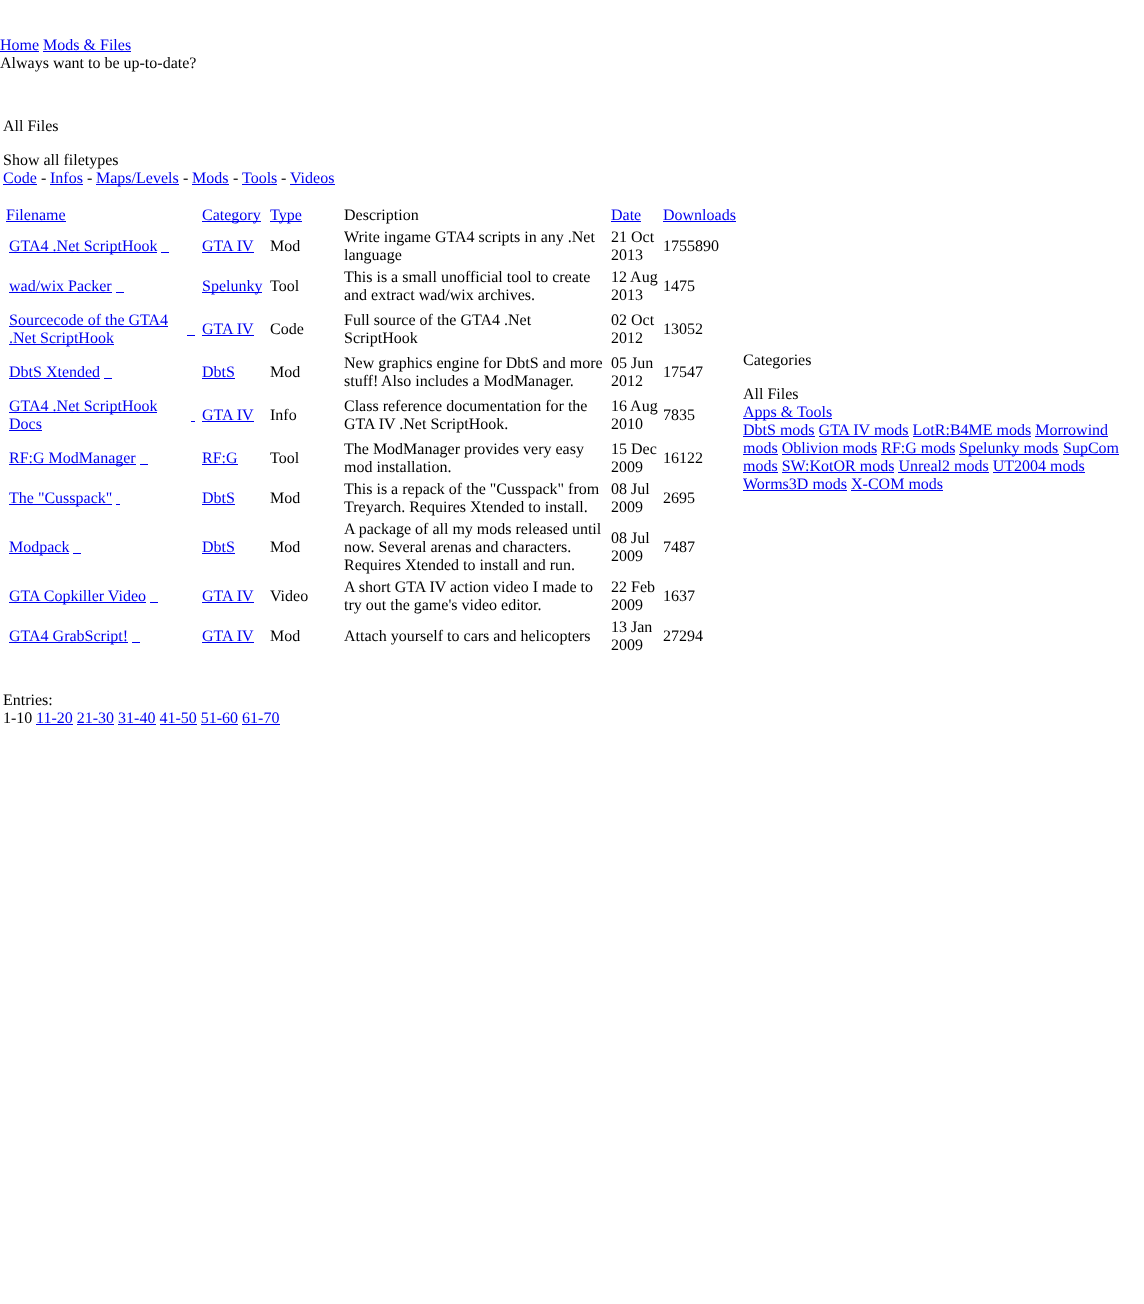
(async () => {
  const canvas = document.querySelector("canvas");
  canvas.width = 1144;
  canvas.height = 1304;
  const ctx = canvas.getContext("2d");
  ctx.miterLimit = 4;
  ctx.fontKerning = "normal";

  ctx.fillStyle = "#ffffff";
  ctx.fillRect(0, 0, 1144, 1304);
  for (const [x, y, w, h, color] of [
    [0, 51, 39, 1, "#0000ee"],
    [43, 51, 88, 1, "#0000ee"],
    [3, 184, 34, 1, "#0000ee"],
    [50, 184, 33, 1, "#0000ee"],
    [96, 184, 83, 1, "#0000ee"],
    [192, 184, 37, 1, "#0000ee"],
    [242, 184, 35, 1, "#0000ee"],
    [290, 184, 45, 1, "#0000ee"],
    [6, 221, 60, 1, "#0000ee"],
    [202, 221, 59, 1, "#0000ee"],
    [270, 221, 32, 1, "#0000ee"],
    [611, 221, 30, 1, "#0000ee"],
    [663, 221, 73, 1, "#0000ee"],
    [9, 252, 148, 1, "#0000ee"],
    [161, 252, 8, 1, "#0000ee"],
    [202, 252, 52, 1, "#0000ee"],
    [9, 292, 103, 1, "#0000ee"],
    [116, 292, 8, 1, "#0000ee"],
    [202, 292, 60, 1, "#0000ee"],
    [9, 326, 159, 1, "#0000ee"],
    [9, 344, 105, 1, "#0000ee"],
    [187, 335, 8, 1, "#0000ee"],
    [202, 335, 52, 1, "#0000ee"],
    [9, 378, 91, 1, "#0000ee"],
    [104, 378, 8, 1, "#0000ee"],
    [202, 378, 33, 1, "#0000ee"],
    [9, 412, 148, 1, "#0000ee"],
    [9, 430, 33, 1, "#0000ee"],
    [191, 421, 4, 1, "#0000ee"],
    [202, 421, 52, 1, "#0000ee"],
    [9, 464, 127, 1, "#0000ee"],
    [140, 464, 8, 1, "#0000ee"],
    [202, 464, 36, 1, "#0000ee"],
    [9, 504, 103, 1, "#0000ee"],
    [116, 504, 4, 1, "#0000ee"],
    [202, 504, 33, 1, "#0000ee"],
    [9, 553, 60, 1, "#0000ee"],
    [73, 553, 8, 1, "#0000ee"],
    [202, 553, 33, 1, "#0000ee"],
    [9, 602, 137, 1, "#0000ee"],
    [150, 602, 8, 1, "#0000ee"],
    [202, 602, 52, 1, "#0000ee"],
    [9, 642, 119, 1, "#0000ee"],
    [132, 642, 8, 1, "#0000ee"],
    [202, 642, 52, 1, "#0000ee"],
    [36, 724, 37, 1, "#0000ee"],
    [77, 724, 37, 1, "#0000ee"],
    [118, 724, 38, 1, "#0000ee"],
    [160, 724, 37, 1, "#0000ee"],
    [201, 724, 37, 1, "#0000ee"],
    [242, 724, 38, 1, "#0000ee"],
    [743, 418, 89, 1, "#0000ee"],
    [743, 436, 72, 1, "#0000ee"],
    [819, 436, 90, 1, "#0000ee"],
    [913, 436, 118, 1, "#0000ee"],
    [1035, 436, 73, 1, "#0000ee"],
    [743, 454, 35, 1, "#0000ee"],
    [959, 454, 100, 1, "#0000ee"],
    [1063, 454, 56, 1, "#0000ee"],
    [782, 454, 95, 1, "#0000ee"],
    [881, 454, 74, 1, "#0000ee"],
    [743, 472, 35, 1, "#0000ee"],
    [782, 472, 112, 1, "#0000ee"],
    [898, 472, 91, 1, "#0000ee"],
    [993, 472, 92, 1, "#0000ee"],
    [743, 490, 104, 1, "#0000ee"],
    [851, 490, 92, 1, "#0000ee"],
  ]) {
    ctx.fillStyle = color;
    ctx.fillRect(x, y, w, h);
  }
  ctx.font = "16px Liberation Serif";
  ctx.fillText("Home Mods & Files", 0, 50);
  ctx.fillStyle = "#000000";
  for (const [text, x, y] of [
    ["Always want to be up-to-date?", 0, 68],
    ["All Files", 3, 131],
    ["Show all filetypes", 3, 165],
  ]) {
    ctx.fillText(text, x, y);
  }
  ctx.fillStyle = "#0000ee";
  ctx.fillText("Code", 3, 183);
  ctx.fillStyle = "#000000";
  ctx.fillText("-", 41, 183);
  ctx.fillStyle = "#0000ee";
  ctx.fillText("Infos", 50, 183);
  ctx.fillStyle = "#000000";
  ctx.fillText("-", 87, 183);
  ctx.fillStyle = "#0000ee";
  ctx.fillText("Maps/Levels", 96, 183);
  ctx.fillStyle = "#000000";
  ctx.fillText("-", 183, 183);
  ctx.fillStyle = "#0000ee";
  ctx.fillText("Mods", 192, 183);
  ctx.fillStyle = "#000000";
  ctx.fillText("-", 233, 183);
  ctx.fillStyle = "#0000ee";
  ctx.fillText("Tools", 242, 183);
  ctx.fillStyle = "#000000";
  ctx.fillText("-", 281, 183);
  ctx.fillStyle = "#0000ee";
  for (const [text, x, y] of [
    ["Videos", 290, 183],
    ["Filename", 6, 220],
    ["Category", 202, 220],
    ["Type", 270, 220],
  ]) {
    ctx.fillText(text, x, y);
  }
  ctx.fillStyle = "#000000";
  ctx.fillText("Description", 344, 220);
  ctx.fillStyle = "#0000ee";
  for (const [text, x, y] of [
    ["Date", 611, 220],
    ["Downloads", 663, 220],
    ["GTA4 .Net ScriptHook", 9, 251],
    ["GTA IV", 202, 251],
  ]) {
    ctx.fillText(text, x, y);
  }
  ctx.fillStyle = "#000000";
  for (const [text, x, y] of [
    ["Mod", 270, 251],
    ["Write ingame GTA4 scripts in any .Net", 344, 242],
    ["language", 344, 260],
    ["21 Oct", 611, 242],
    ["2013", 611, 260],
    ["1755890", 663, 251],
  ]) {
    ctx.fillText(text, x, y);
  }
  ctx.fillStyle = "#0000ee";
  ctx.fillText("wad/wix Packer", 9, 291);
  ctx.fillText("Spelunky", 202, 291);
  ctx.fillStyle = "#000000";
  for (const [text, x, y] of [
    ["Tool", 270, 291],
    ["This is a small unofficial tool to create", 344, 282],
    ["and extract wad/wix archives.", 344, 300],
    ["12 Aug", 611, 282],
    ["2013", 611, 300],
    ["1475", 663, 291],
  ]) {
    ctx.fillText(text, x, y);
  }
  ctx.fillStyle = "#0000ee";
  for (const [text, x, y] of [
    ["Sourcecode of the GTA4", 9, 325],
    [".Net ScriptHook", 9, 343],
    ["GTA IV", 202, 334],
  ]) {
    ctx.fillText(text, x, y);
  }
  ctx.fillStyle = "#000000";
  for (const [text, x, y] of [
    ["Code", 270, 334],
    ["Full source of the GTA4 .Net", 344, 325],
    ["ScriptHook", 344, 343],
    ["02 Oct", 611, 325],
    ["2012", 611, 343],
    ["13052", 663, 334],
  ]) {
    ctx.fillText(text, x, y);
  }
  ctx.fillStyle = "#0000ee";
  ctx.fillText("DbtS Xtended", 9, 377);
  ctx.fillText("DbtS", 202, 377);
  ctx.fillStyle = "#000000";
  for (const [text, x, y] of [
    ["Mod", 270, 377],
    ["New graphics engine for DbtS and more", 344, 368],
    ["stuff!", 344, 386],
    ["Also includes a ModManager.", 381, 386],
    ["05 Jun", 611, 368],
    ["2012", 611, 386],
    ["17547", 663, 377],
  ]) {
    ctx.fillText(text, x, y);
  }
  ctx.fillStyle = "#0000ee";
  for (const [text, x, y] of [
    ["GTA4 .Net ScriptHook", 9, 411],
    ["Docs", 9, 429],
    ["GTA IV", 202, 420],
  ]) {
    ctx.fillText(text, x, y);
  }
  ctx.fillStyle = "#000000";
  for (const [text, x, y] of [
    ["Info", 270, 420],
    ["Class reference documentation for the", 344, 411],
    ["GTA IV .Net ScriptHook.", 344, 429],
    ["16 Aug", 611, 411],
    ["2010", 611, 429],
    ["7835", 663, 420],
  ]) {
    ctx.fillText(text, x, y);
  }
  ctx.fillStyle = "#0000ee";
  ctx.fillText("RF:G ModManager", 9, 463);
  ctx.fillText("RF:G", 202, 463);
  ctx.fillStyle = "#000000";
  for (const [text, x, y] of [
    ["Tool", 270, 463],
    ["The ModManager provides very easy", 344, 454],
    ["mod installation.", 344, 472],
    ["15 Dec", 611, 454],
    ["2009", 611, 472],
    ["16122", 663, 463],
  ]) {
    ctx.fillText(text, x, y);
  }
  ctx.fillStyle = "#0000ee";
  ctx.fillText("The \"Cusspack\"", 9, 503);
  ctx.fillText("DbtS", 202, 503);
  ctx.fillStyle = "#000000";
  for (const [text, x, y] of [
    ["Mod", 270, 503],
    ["This is a repack of the \"Cusspack\" from", 344, 494],
    ["Treyarch. Requires Xtended to install.", 344, 512],
    ["08 Jul", 611, 494],
    ["2009", 611, 512],
    ["2695", 663, 503],
  ]) {
    ctx.fillText(text, x, y);
  }
  ctx.fillStyle = "#0000ee";
  ctx.fillText("Modpack", 9, 552);
  ctx.fillText("DbtS", 202, 552);
  ctx.fillStyle = "#000000";
  for (const [text, x, y] of [
    ["Mod", 270, 552],
    ["A package of all my mods released until", 344, 534],
    ["now. Several arenas and characters.", 344, 552],
    ["Requires Xtended to install and run.", 344, 570],
    ["08 Jul", 611, 543],
    ["2009", 611, 561],
    ["7487", 663, 552],
  ]) {
    ctx.fillText(text, x, y);
  }
  ctx.fillStyle = "#0000ee";
  ctx.fillText("GTA Copkiller Video", 9, 601);
  ctx.fillText("GTA IV", 202, 601);
  ctx.fillStyle = "#000000";
  for (const [text, x, y] of [
    ["Video", 270, 601],
    ["A short GTA IV action video I made to", 344, 592],
    ["try out the game's video editor.", 344, 610],
    ["22 Feb", 611, 592],
    ["2009", 611, 610],
    ["1637", 663, 601],
  ]) {
    ctx.fillText(text, x, y);
  }
  ctx.fillStyle = "#0000ee";
  ctx.fillText("GTA4 GrabScript!", 9, 641);
  ctx.fillText("GTA IV", 202, 641);
  ctx.fillStyle = "#000000";
  for (const [text, x, y] of [
    ["Mod", 270, 641],
    ["Attach yourself to cars and helicopters", 344, 641],
    ["13 Jan", 611, 632],
    ["2009", 611, 650],
    ["27294", 663, 641],
    ["Entries:", 3, 705],
    ["1-10", 3, 723],
  ]) {
    ctx.fillText(text, x, y);
  }
  ctx.fillStyle = "#0000ee";
  ctx.fillText("11-20 21-30 31-40 41-50 51-60 61-70", 36, 723);
  ctx.fillStyle = "#000000";
  ctx.fillText("Categories", 743, 365);
  ctx.fillText("All Files", 743, 399);
  ctx.fillStyle = "#0000ee";
  for (const [text, x, y] of [
    ["Apps & Tools", 743, 417],
    ["DbtS mods GTA IV mods LotR:B4ME mods Morrowind", 743, 435],
    ["mods Oblivion mods RF:G mods", 743, 453],
    ["Spelunky mods", 959, 453],
    ["SupCom", 1063, 453],
    ["mods SW:KotOR mods Unreal2 mods UT2004 mods", 743, 471],
    ["Worms3D mods X-COM mods", 743, 489],
  ]) {
    ctx.fillText(text, x, y);
  }
})();
